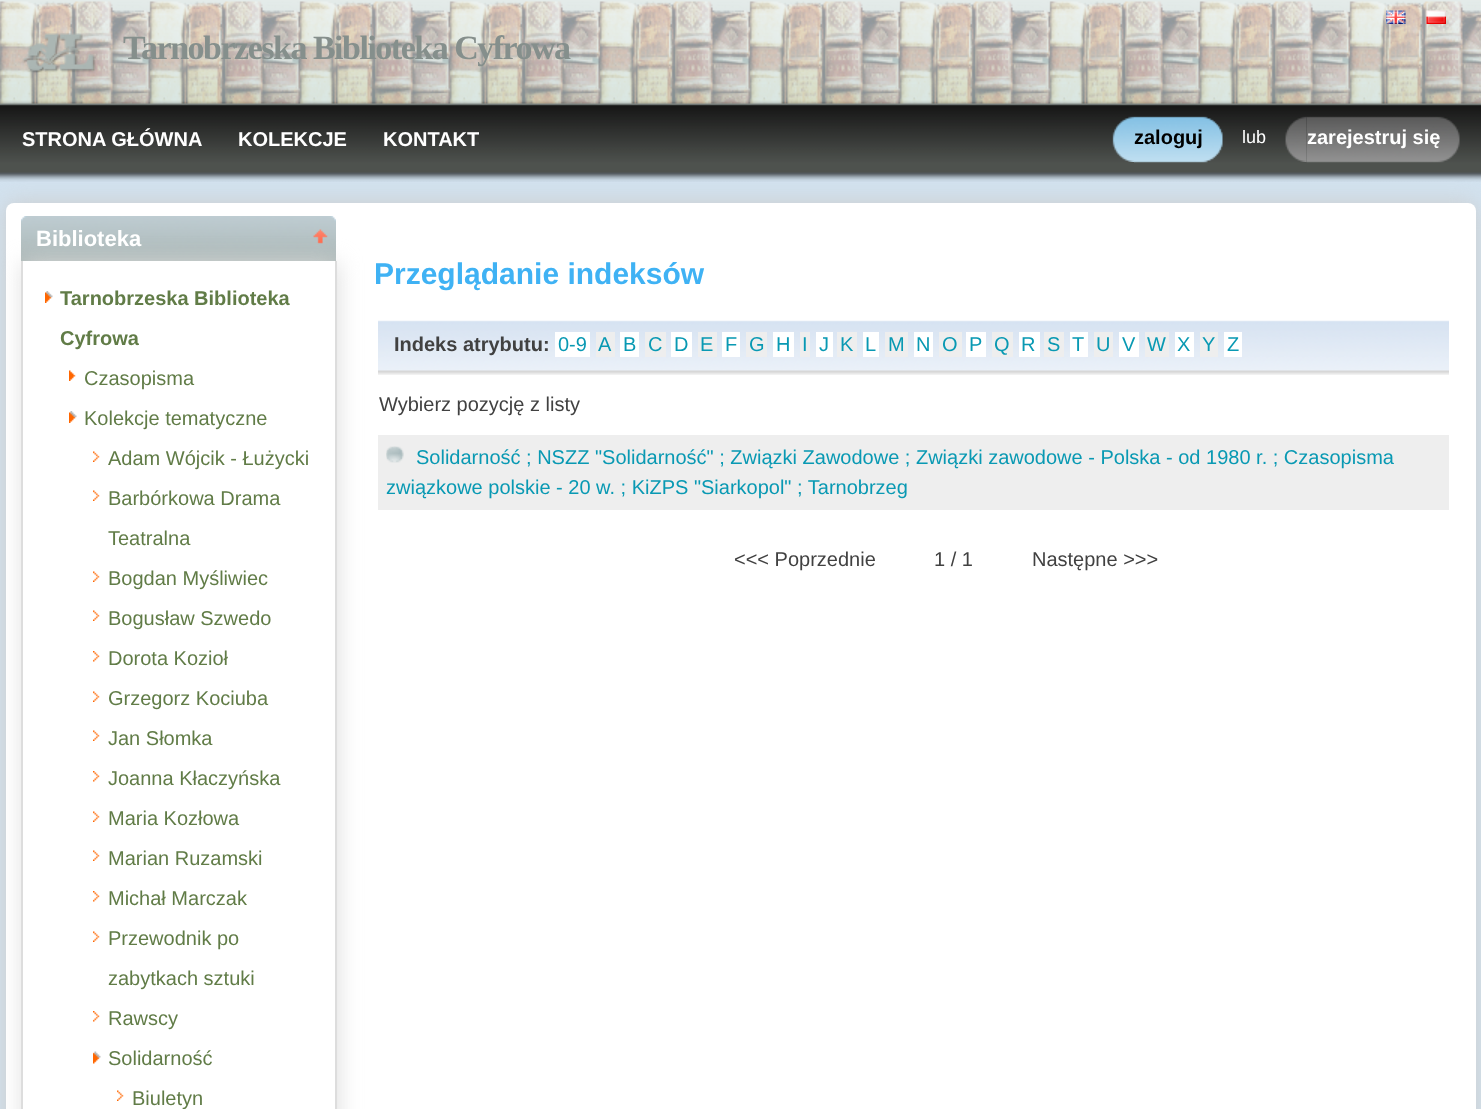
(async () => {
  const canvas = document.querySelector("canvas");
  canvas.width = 1481;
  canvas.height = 1109;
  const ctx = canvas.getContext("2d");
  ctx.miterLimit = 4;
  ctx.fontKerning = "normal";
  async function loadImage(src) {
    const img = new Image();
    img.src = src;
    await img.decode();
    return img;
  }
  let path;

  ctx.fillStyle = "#d2e2ef";
  ctx.fillRect(0, 0, 1481, 1109);
  ctx.drawImage(await loadImage("img/1.png"), 0, 0, 1481, 105);
  ctx.drawImage(await loadImage("img/2.png"), 1386, 10, 20, 14);
  ctx.drawImage(await loadImage("img/3.png"), 1426, 10, 20, 14);
  ctx.drawImage(await loadImage("img/4.png"), 22, 33, 74, 40);
  ctx.fillStyle = "#cccccc";
  ctx.filter = "blur(11px)";
  ctx.beginPath();
  ctx.roundRect(6, 203, 1470, 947, 8);
  ctx.fill();
  ctx.filter = "none";
  ctx.drawImage(await loadImage("img/5.png"), 0, 105, 1481, 77);
  ctx.drawImage(await loadImage("img/6.png"), 1134, 116, 89, 47);
  ctx.drawImage(await loadImage("img/7.png"), 1112, 116, 22, 46);
  ctx.drawImage(await loadImage("img/8.png"), 1306, 116, 154, 47);
  ctx.drawImage(await loadImage("img/9.png"), 1285, 116, 22, 46);
  ctx.fillStyle = "#ffffff";
  ctx.beginPath();
  ctx.roundRect(6, 203, 1470, 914, 8);
  ctx.fill();
  ctx.drawImage(await loadImage("img/10.png"), 21, 216, 315, 45);
  ctx.save();
  path = new Path2D("M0 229H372V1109H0ZM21 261H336V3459H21Z");
  ctx.clip(path, "evenodd");
  ctx.fillStyle = "#dddddd";
  ctx.filter = "blur(11px)";
  ctx.beginPath();
  ctx.rect(23, 263, 315, 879);
  ctx.fill();
  ctx.filter = "none";
  ctx.restore();
  ctx.drawImage(await loadImage("img/11.png"), 313, 229, 15, 15);
  ctx.fillStyle = "#dddddd";
  ctx.fillRect(335, 261, 2, 848);
  ctx.fillRect(21, 261, 2, 848);
  ctx.drawImage(await loadImage("img/12.png"), 45, 291, 8, 12);
  ctx.drawImage(await loadImage("img/13.png"), 69, 370, 7, 11);
  ctx.drawImage(await loadImage("img/12.png"), 69, 411, 8, 12);
  ctx.drawImage(await loadImage("img/14.png"), 93, 451, 7, 11);
  ctx.drawImage(await loadImage("img/14.png"), 93, 490, 7, 11);
  ctx.drawImage(await loadImage("img/14.png"), 93, 571, 7, 11);
  ctx.drawImage(await loadImage("img/14.png"), 93, 610, 7, 11);
  ctx.drawImage(await loadImage("img/15.png"), 93, 651, 7, 11);
  ctx.drawImage(await loadImage("img/14.png"), 93, 691, 7, 11);
  ctx.drawImage(await loadImage("img/14.png"), 93, 730, 7, 11);
  ctx.drawImage(await loadImage("img/15.png"), 93, 771, 7, 11);
  ctx.drawImage(await loadImage("img/14.png"), 93, 811, 7, 11);
  ctx.drawImage(await loadImage("img/14.png"), 93, 850, 7, 11);
  ctx.drawImage(await loadImage("img/15.png"), 93, 891, 7, 11);
  ctx.drawImage(await loadImage("img/14.png"), 93, 931, 7, 11);
  ctx.drawImage(await loadImage("img/15.png"), 93, 1011, 7, 11);
  ctx.drawImage(await loadImage("img/16.png"), 93, 1051, 8, 13);
  ctx.drawImage(await loadImage("img/14.png"), 117, 1090, 7, 11);
  ctx.drawImage(await loadImage("img/17.png"), 378, 320, 1071, 55);
  for (const [x, y, w, h, color] of [
    [555, 332, 35, 25, "#ffffff"],
    [596, 332, 19, 25, "#eeeeee"],
    [620, 332, 19, 25, "#ffffff"],
    [645, 332, 21, 25, "#eeeeee"],
    [671, 332, 21, 25, "#ffffff"],
    [698, 332, 19, 25, "#eeeeee"],
    [722, 332, 18, 25, "#ffffff"],
    [746, 332, 21, 25, "#eeeeee"],
    [773, 332, 21, 25, "#ffffff"],
    [800, 332, 10, 25, "#eeeeee"],
    [816, 332, 17, 25, "#ffffff"],
    [837, 332, 20, 25, "#eeeeee"],
    [863, 332, 16, 25, "#ffffff"],
    [885, 332, 23, 25, "#eeeeee"],
    [914, 332, 19, 25, "#ffffff"],
    [939, 332, 23, 25, "#eeeeee"],
    [966, 332, 20, 25, "#ffffff"],
    [992, 332, 21, 25, "#eeeeee"],
    [1019, 332, 21, 25, "#ffffff"],
    [1044, 332, 20, 25, "#eeeeee"],
    [1070, 332, 18, 25, "#ffffff"],
    [1094, 332, 19, 25, "#eeeeee"],
    [1119, 332, 20, 25, "#ffffff"],
    [1145, 332, 24, 25, "#eeeeee"],
    [1175, 332, 19, 25, "#ffffff"],
    [1200, 332, 18, 25, "#eeeeee"],
    [1224, 332, 18, 25, "#ffffff"],
    [378, 435, 1071, 75, "#eeeeee"],
  ]) {
    ctx.fillStyle = color;
    ctx.fillRect(x, y, w, h);
  }
  ctx.drawImage(await loadImage("img/18.png"), 386, 446, 18, 17);
  ctx.letterSpacing = "-1.5px";
  ctx.font = "bold 34px Liberation Serif";
  ctx.fillStyle = "#858f8c";
  ctx.fillText("Tarnobrzeska Biblioteka Cyfrowa", 123, 59);
  ctx.letterSpacing = "0px";
  ctx.font = "bold 20px Liberation Sans";
  ctx.fillStyle = "#ffffff";
  for (const [text, x, y] of [
    ["STRONA GŁÓWNA", 22, 146],
    ["KOLEKCJE", 238, 146],
    ["KONTAKT", 383, 146],
  ]) {
    ctx.fillText(text, x, y);
  }
  ctx.fillStyle = "#000000";
  ctx.fillText("zaloguj", 1134, 144);
  ctx.font = "18px Liberation Sans";
  ctx.fillStyle = "#ffffff";
  ctx.fillText("lub", 1242, 143);
  ctx.font = "bold 20px Liberation Sans";
  ctx.fillText("zarejestruj się", 1307, 144);
  ctx.font = "bold 22px Liberation Sans";
  ctx.fillText("Biblioteka", 36, 246);
  ctx.font = "bold 20px Liberation Sans";
  ctx.fillStyle = "#617c47";
  ctx.fillText("Tarnobrzeska Biblioteka", 60, 305);
  ctx.fillText("Cyfrowa", 60, 345);
  ctx.font = "20px Liberation Sans";
  for (const [text, x, y] of [
    ["Czasopisma", 84, 385],
    ["Kolekcje tematyczne", 84, 425],
    ["Adam Wójcik - Łużycki", 108, 465],
    ["Barbórkowa Drama", 108, 505],
    ["Teatralna", 108, 545],
    ["Bogdan Myśliwiec", 108, 585],
    ["Bogusław Szwedo", 108, 625],
    ["Dorota Kozioł", 108, 665],
    ["Grzegorz Kociuba", 108, 705],
    ["Jan Słomka", 108, 745],
    ["Joanna Kłaczyńska", 108, 785],
    ["Maria Kozłowa", 108, 825],
    ["Marian Ruzamski", 108, 865],
    ["Michał Marczak", 108, 905],
    ["Przewodnik po", 108, 945],
    ["zabytkach sztuki", 108, 985],
    ["Rawscy", 108, 1025],
    ["Solidarność", 108, 1065],
    ["Biuletyn", 132, 1105],
  ]) {
    ctx.fillText(text, x, y);
  }
  ctx.font = "bold 30px Liberation Sans";
  ctx.fillStyle = "#3fb2f4";
  ctx.fillText("Przeglądanie indeksów", 374, 284);
  ctx.font = "bold 20px Liberation Sans";
  ctx.fillStyle = "#414141";
  ctx.fillText("Indeks atrybutu:", 394, 351);
  ctx.font = "20px Liberation Sans";
  ctx.fillStyle = "#0999b3";
  for (const [text, x, y] of [
    ["0-9", 558, 351],
    ["A", 598, 351],
    ["B", 623, 351],
    ["C", 648, 351],
    ["D", 674, 351],
    ["E", 700, 351],
    ["F", 725, 351],
    ["G", 749, 351],
    ["H", 776, 351],
    ["I", 802, 351],
    ["J", 819, 351],
    ["K", 840, 351],
    ["L", 865, 351],
    ["M", 888, 351],
    ["N", 916, 351],
    ["O", 942, 351],
    ["P", 969, 351],
    ["Q", 994, 351],
    ["R", 1021, 351],
    ["S", 1047, 351],
    ["T", 1072, 351],
    ["U", 1096, 351],
    ["V", 1122, 351],
    ["W", 1147, 351],
    ["X", 1177, 351],
    ["Y", 1202, 351],
    ["Z", 1227, 351],
  ]) {
    ctx.fillText(text, x, y);
  }
  ctx.fillStyle = "#414141";
  ctx.fillText("Wybierz pozycję z listy", 379, 411);
  ctx.fillStyle = "#0999b3";
  ctx.fillText("Solidarność ; NSZZ \"Solidarność\" ; Związki Zawodowe ; Związki zawodowe - Polska - od 1980 r. ; Czasopisma", 416, 464);
  ctx.fillText("związkowe polskie - 20 w. ; KiZPS \"Siarkopol\" ; Tarnobrzeg", 386, 494);
  ctx.fillStyle = "#414141";
  for (const [text, x, y] of [
    ["<<< Poprzednie", 734, 566],
    ["1 / 1", 934, 566],
    ["Następne >>>", 1032, 566],
  ]) {
    ctx.fillText(text, x, y);
  }
})();
